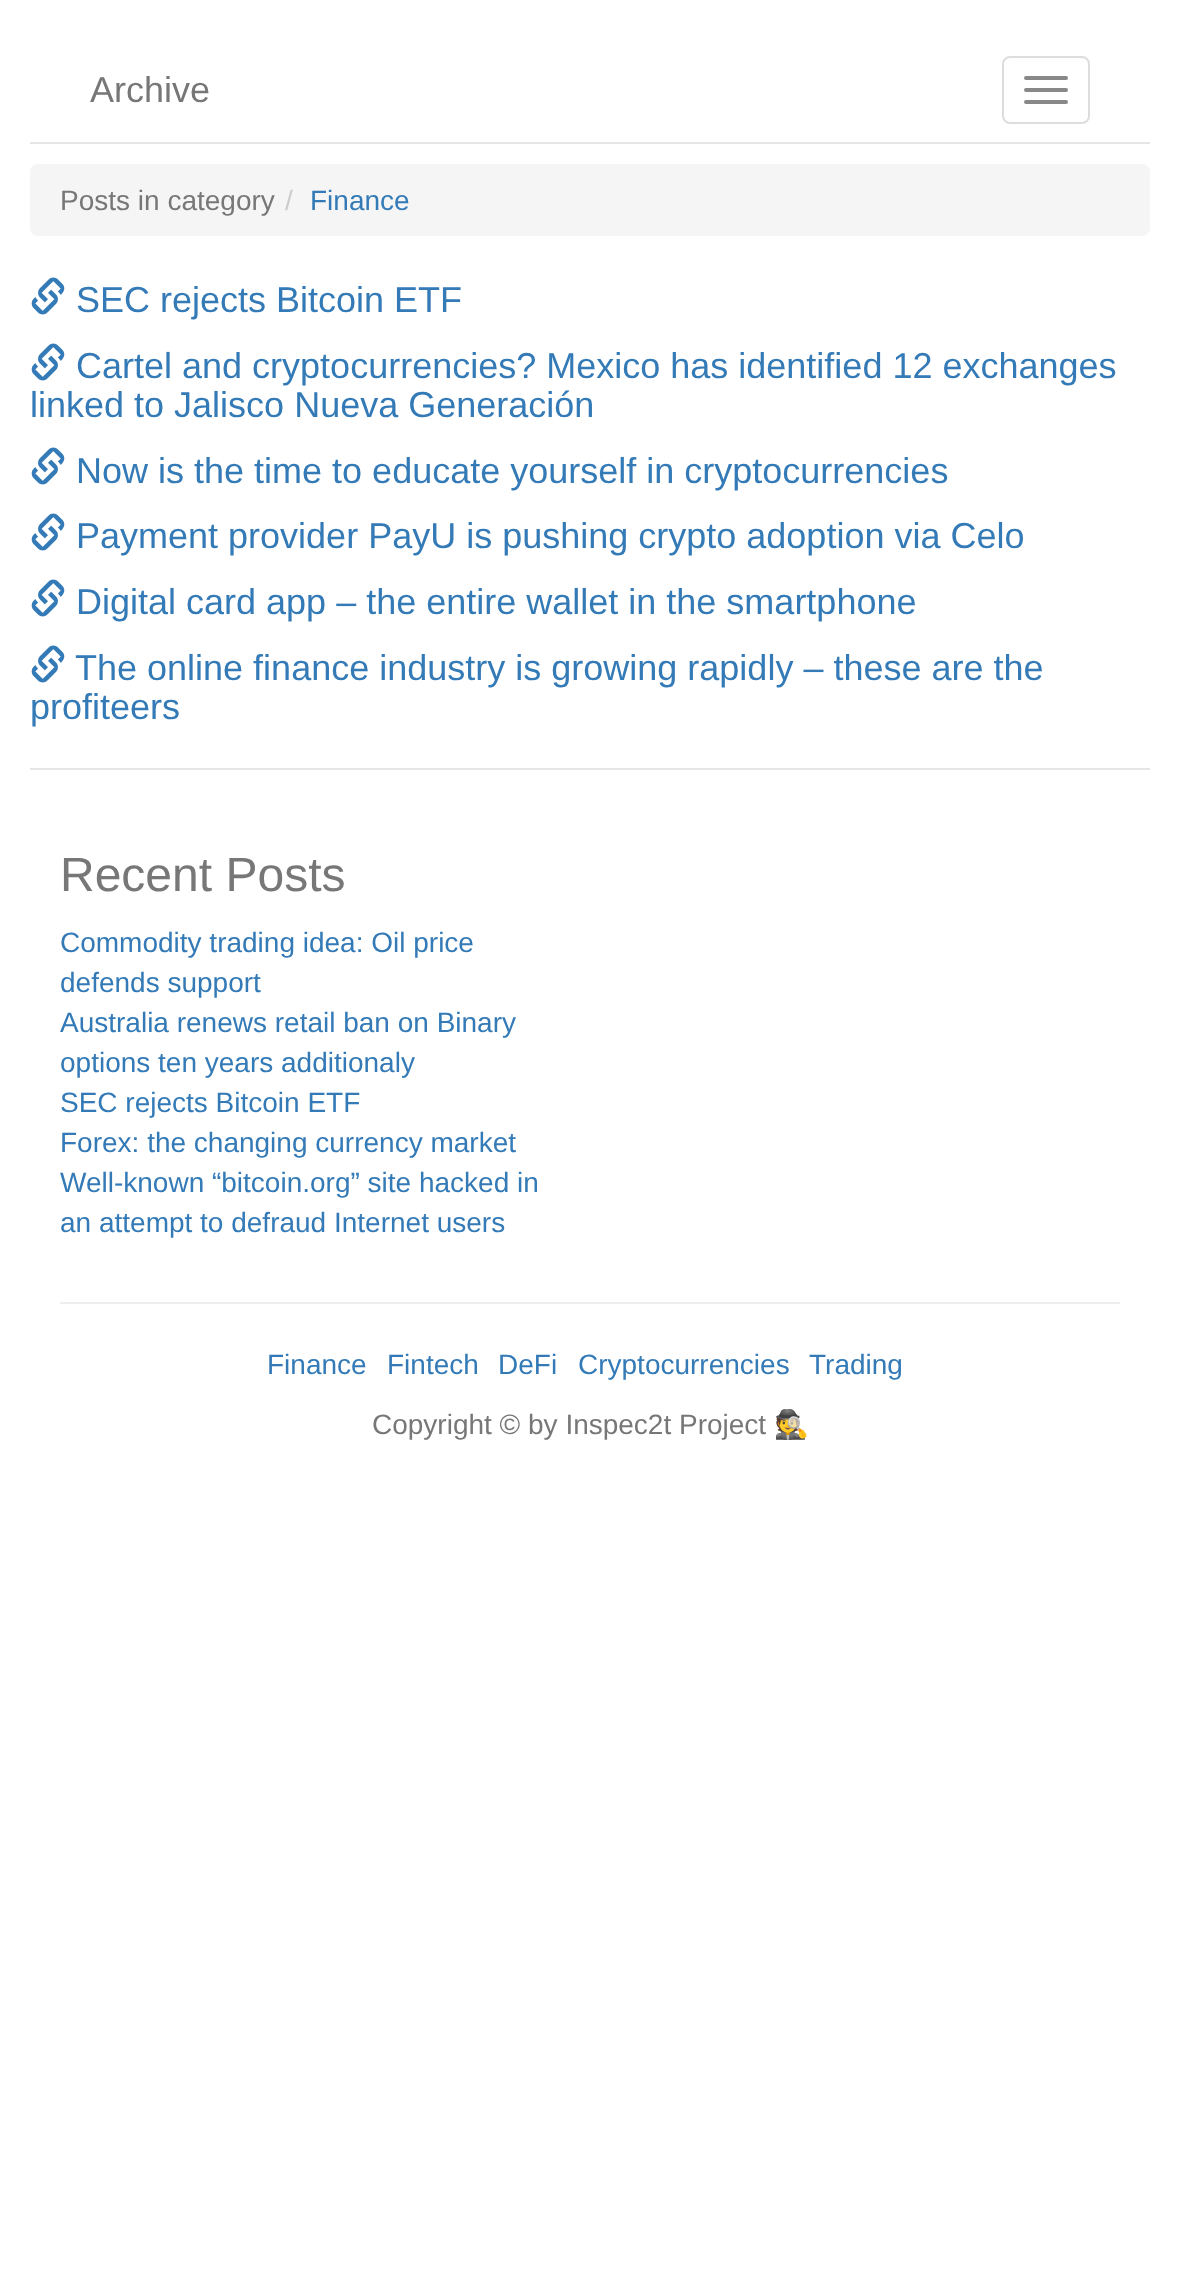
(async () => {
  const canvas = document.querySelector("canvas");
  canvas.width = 1179;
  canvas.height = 2282;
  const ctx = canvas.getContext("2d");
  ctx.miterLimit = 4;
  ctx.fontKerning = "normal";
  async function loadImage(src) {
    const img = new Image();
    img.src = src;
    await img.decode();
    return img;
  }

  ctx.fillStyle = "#ffffff";
  ctx.fillRect(0, 0, 1179, 2282);
  ctx.fillStyle = "#e5e5e5";
  ctx.fillRect(30, 142, 1120, 2);
  ctx.beginPath();
  ctx.roundRect(1003, 57, 86, 66, 7);
  ctx.strokeStyle = "#dddddd";
  ctx.lineWidth = 2;
  ctx.stroke();
  ctx.fillStyle = "#888888";
  ctx.beginPath();
  ctx.roundRect(1024, 76, 44, 4, 2);
  ctx.fill();
  ctx.beginPath();
  ctx.roundRect(1024, 88, 44, 4, 2);
  ctx.fill();
  ctx.beginPath();
  ctx.roundRect(1024, 100, 44, 4, 2);
  ctx.fill();
  ctx.fillStyle = "#f5f5f5";
  ctx.beginPath();
  ctx.roundRect(30, 164, 1120, 72, 8);
  ctx.fill();
  ctx.drawImage(await loadImage("img/1.png"), 31, 277, 34, 38);
  ctx.drawImage(await loadImage("img/1.png"), 31, 343, 34, 38);
  ctx.drawImage(await loadImage("img/1.png"), 31, 447, 34, 38);
  ctx.drawImage(await loadImage("img/1.png"), 31, 513, 34, 38);
  ctx.drawImage(await loadImage("img/1.png"), 31, 579, 34, 38);
  ctx.drawImage(await loadImage("img/1.png"), 31, 645, 34, 38);
  ctx.fillStyle = "#e5e5e5";
  ctx.fillRect(30, 768, 1120, 2);
  ctx.fillStyle = "#eeeeee";
  ctx.fillRect(60, 1302, 1060, 2);
  ctx.font = "36px Liberation Sans";
  ctx.fillStyle = "#777777";
  ctx.fillText("Archive", 90, 102);
  ctx.font = "28px Liberation Sans";
  ctx.fillText("Posts in category", 60, 210);
  ctx.fillStyle = "#cccccc";
  ctx.fillText("/", 285, 210);
  ctx.fillStyle = "#337ab7";
  ctx.fillText("Finance", 310, 210);
  ctx.font = "36px Liberation Sans";
  for (const [text, x, y] of [
    ["SEC rejects Bitcoin ETF", 76, 312],
    ["Cartel and cryptocurrencies? Mexico has identified 12 exchanges", 76, 378],
    ["linked to Jalisco Nueva Generación", 30, 417],
    ["Now is the time to educate yourself in cryptocurrencies", 76, 483],
    ["Payment provider PayU is pushing crypto adoption via Celo", 76, 548],
    ["Digital card app – the entire wallet in the smartphone", 76, 614],
    ["The online finance industry is growing rapidly – these are the", 75, 680],
    ["profiteers", 30, 719],
  ]) {
    ctx.fillText(text, x, y);
  }
  ctx.font = "48px Liberation Sans";
  ctx.fillStyle = "#777777";
  ctx.fillText("Recent Posts", 60, 891);
  ctx.font = "28px Liberation Sans";
  ctx.fillStyle = "#337ab7";
  for (const [text, x, y] of [
    ["Commodity trading idea: Oil price", 60, 952],
    ["defends support", 60, 992],
    ["Australia renews retail ban on Binary", 60, 1032],
    ["options ten years additionaly", 60, 1072],
    ["SEC rejects Bitcoin ETF", 60, 1112],
    ["Forex: the changing currency market", 60, 1152],
    ["Well-known “bitcoin.org” site hacked in", 60, 1192],
    ["an attempt to defraud Internet users", 60, 1232],
    ["Finance", 267, 1374],
    ["Fintech", 387, 1374],
    ["DeFi", 498, 1374],
    ["Cryptocurrencies", 578, 1374],
    ["Trading", 809, 1374],
  ]) {
    ctx.fillText(text, x, y);
  }
  ctx.fillStyle = "#777777";
  ctx.fillText("Copyright © by Inspec2t Project", 372, 1434);
  ctx.font = "28px Noto Color Emoji";
  ctx.fillText("🕵️", 774, 1434);
})();
